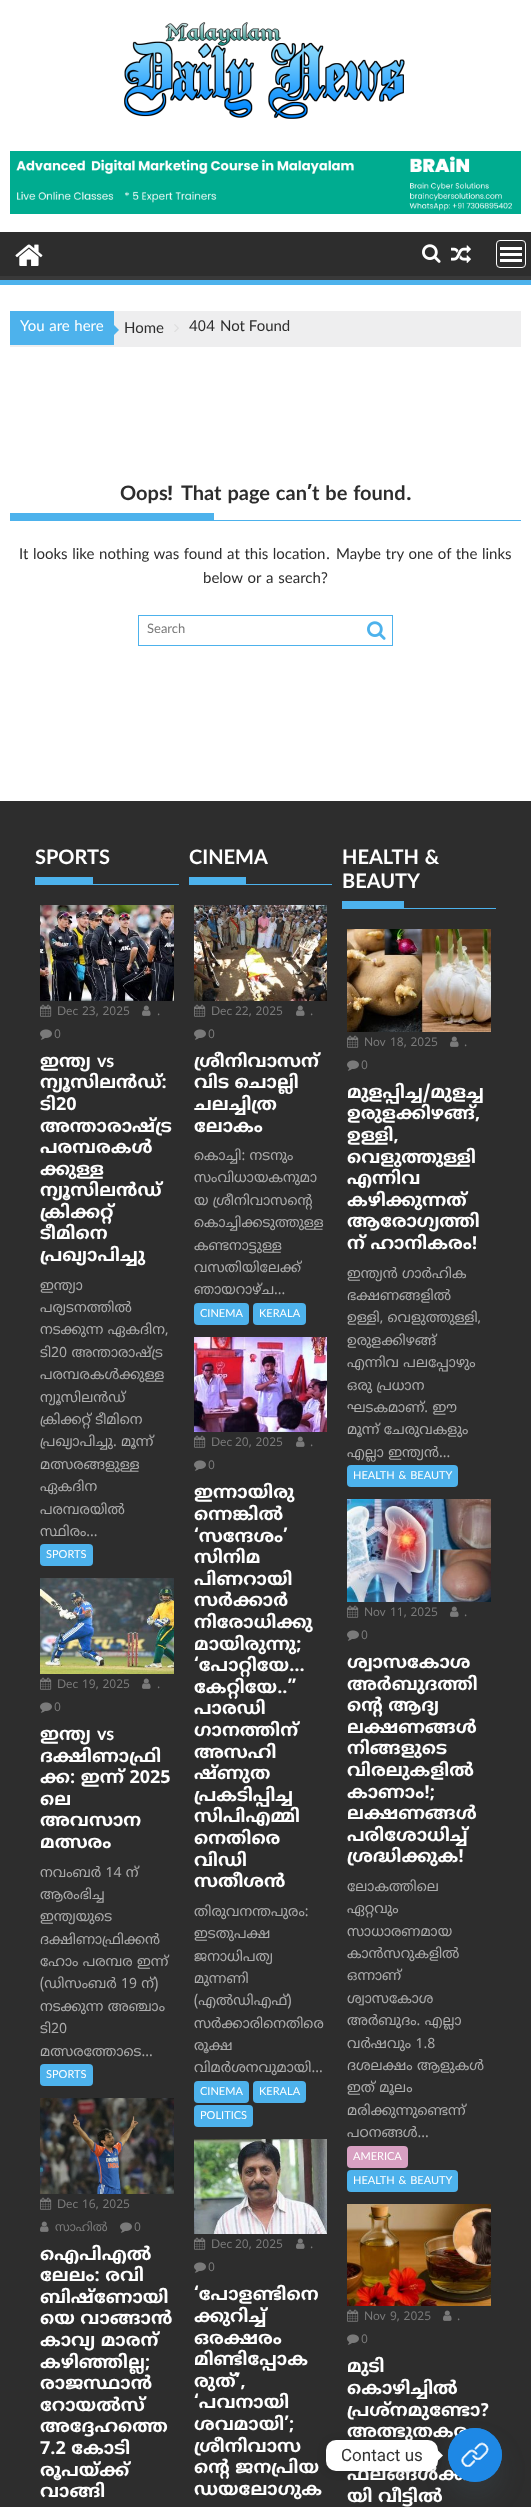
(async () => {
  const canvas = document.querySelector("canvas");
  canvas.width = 531;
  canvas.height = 2507;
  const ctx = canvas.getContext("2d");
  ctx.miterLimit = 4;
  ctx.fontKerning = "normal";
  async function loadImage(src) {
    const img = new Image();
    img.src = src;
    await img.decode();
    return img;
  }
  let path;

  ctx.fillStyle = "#ffffff";
  ctx.fillRect(0, 0, 531, 2507);
  ctx.drawImage(await loadImage("img/1.png"), 124, 22, 281, 97);
  ctx.drawImage(await loadImage("img/2.png"), 10, 151, 511, 63);
  ctx.fillStyle = "#2d2d2d";
  ctx.fillRect(0, 232, 531, 44);
  ctx.save();
  ctx.beginPath();
  ctx.rect(0, 232, 531, 48);
  ctx.clip();
  ctx.fillStyle = "#393939";
  path = new Path2D("M-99 133H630V379H-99ZM-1 226H530C531 226 531 226 531 227V275C531 276 531 276 530 276H-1C-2 276-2 276-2 275V227C-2 226-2 226-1 226Z");
  ctx.fill(path, "evenodd");
  ctx.restore();
  ctx.fillStyle = "#4db2ec";
  ctx.fillRect(0, 280, 531, 5);
  ctx.drawImage(await loadImage("img/3.png"), 15, 244, 28, 22);
  ctx.drawImage(await loadImage("img/4.png"), 422, 244, 19, 19);
  ctx.drawImage(await loadImage("img/5.png"), 451, 245, 20, 18);
  ctx.beginPath();
  ctx.roundRect(496.5, 240.5, 29, 27, 3.5);
  ctx.strokeStyle = "#ffffff";
  ctx.stroke();
  for (const [x, y, w, h, color] of [
    [500, 259, 22, 3, "#ffffff"],
    [500, 253, 22, 3, "#ffffff"],
    [500, 247, 22, 3, "#ffffff"],
    [10, 311, 511, 36, "#eeeeef"],
    [10, 311, 104, 34, "#4db2ec"],
  ]) {
    ctx.fillStyle = color;
    ctx.fillRect(x, y, w, h);
  }
  path = new Path2D("M114 335V325L119 330Z");
  ctx.fill(path);
  ctx.drawImage(await loadImage("img/6.png"), 174, 324, 5, 8);
  ctx.fillRect(10, 520, 511, 1);
  ctx.fillRect(10, 513, 204, 7);
  ctx.strokeStyle = "#4db2ec";
  ctx.strokeRect(138.5, 615.5, 254, 30);
  ctx.drawImage(await loadImage("img/7.png"), 367, 621, 19, 19);
  for (const [x, y, w, h, color] of [
    [0, 801, 531, 1706, "#2d2d2d"],
    [35, 884, 144, 1, "#4db2ec"],
    [35, 877, 58, 7, "#4db2ec"],
  ]) {
    ctx.fillStyle = color;
    ctx.fillRect(x, y, w, h);
  }
  ctx.drawImage(await loadImage("img/8.png"), 40, 905, 134, 96);
  ctx.drawImage(await loadImage("img/9.png"), 40, 1004, 12, 13);
  ctx.drawImage(await loadImage("img/10.png"), 142, 1005, 9, 11);
  ctx.drawImage(await loadImage("img/11.png"), 40, 1029, 12, 11);
  ctx.beginPath();
  ctx.roundRect(40, 1544, 53, 22, 4);
  ctx.fill();
  ctx.drawImage(await loadImage("img/12.png"), 40, 1578, 134, 96);
  ctx.drawImage(await loadImage("img/9.png"), 40, 1677, 12, 13);
  ctx.drawImage(await loadImage("img/10.png"), 142, 1678, 9, 11);
  ctx.drawImage(await loadImage("img/11.png"), 40, 1702, 12, 11);
  ctx.beginPath();
  ctx.roundRect(40, 2064, 53, 22, 4);
  ctx.fill();
  ctx.drawImage(await loadImage("img/13.png"), 40, 2098, 134, 96);
  ctx.drawImage(await loadImage("img/9.png"), 40, 2197, 12, 13);
  ctx.drawImage(await loadImage("img/10.png"), 40, 2221, 9, 11);
  ctx.drawImage(await loadImage("img/11.png"), 120, 2222, 12, 11);
  ctx.fillRect(189, 884, 143, 1);
  ctx.fillRect(189, 877, 57, 7);
  ctx.drawImage(await loadImage("img/14.png"), 194, 905, 133, 96);
  ctx.drawImage(await loadImage("img/9.png"), 194, 1004, 12, 13);
  ctx.drawImage(await loadImage("img/10.png"), 296, 1005, 9, 11);
  ctx.drawImage(await loadImage("img/11.png"), 194, 1029, 12, 11);
  ctx.beginPath();
  ctx.roundRect(194, 1303, 55, 22, 4);
  ctx.fill();
  ctx.beginPath();
  ctx.roundRect(253, 1303, 53, 22, 4);
  ctx.fill();
  ctx.drawImage(await loadImage("img/15.png"), 194, 1337, 133, 95);
  ctx.drawImage(await loadImage("img/9.png"), 194, 1435, 12, 13);
  ctx.drawImage(await loadImage("img/10.png"), 296, 1436, 9, 11);
  ctx.drawImage(await loadImage("img/11.png"), 194, 1460, 12, 11);
  ctx.beginPath();
  ctx.roundRect(194, 2081, 55, 22, 4);
  ctx.fill();
  ctx.beginPath();
  ctx.roundRect(253, 2081, 53, 22, 4);
  ctx.fill();
  ctx.beginPath();
  ctx.roundRect(194, 2105, 59, 22, 4);
  ctx.fill();
  ctx.drawImage(await loadImage("img/16.png"), 194, 2139, 133, 95);
  ctx.drawImage(await loadImage("img/9.png"), 194, 2237, 12, 13);
  ctx.drawImage(await loadImage("img/10.png"), 296, 2238, 9, 11);
  ctx.drawImage(await loadImage("img/11.png"), 194, 2262, 12, 11);
  ctx.fillRect(342, 908, 154, 1);
  ctx.fillRect(342, 901, 62, 7);
  ctx.drawImage(await loadImage("img/17.png"), 347, 929, 144, 103);
  ctx.drawImage(await loadImage("img/9.png"), 347, 1035, 12, 13);
  ctx.drawImage(await loadImage("img/10.png"), 450, 1036, 9, 11);
  ctx.drawImage(await loadImage("img/11.png"), 347, 1060, 12, 11);
  ctx.beginPath();
  ctx.roundRect(347, 1465, 111, 22, 4);
  ctx.fill();
  ctx.drawImage(await loadImage("img/18.png"), 347, 1499, 144, 103);
  ctx.drawImage(await loadImage("img/9.png"), 347, 1605, 12, 13);
  ctx.drawImage(await loadImage("img/10.png"), 450, 1606, 9, 11);
  ctx.drawImage(await loadImage("img/11.png"), 347, 1630, 12, 11);
  ctx.fillStyle = "#d8a0c2";
  ctx.beginPath();
  ctx.roundRect(347, 2146, 61, 22, 4);
  ctx.fill();
  ctx.fillStyle = "#4db2ec";
  ctx.beginPath();
  ctx.roundRect(347, 2170, 111, 22, 4);
  ctx.fill();
  ctx.drawImage(await loadImage("img/19.png"), 347, 2204, 144, 102);
  ctx.drawImage(await loadImage("img/9.png"), 347, 2309, 12, 13);
  ctx.drawImage(await loadImage("img/10.png"), 443, 2310, 9, 11);
  ctx.drawImage(await loadImage("img/11.png"), 347, 2334, 12, 11);
  ctx.fillStyle = "rgba(73, 104, 126, 0.16)";
  ctx.filter = "blur(12px)";
  ctx.beginPath();
  ctx.roundRect(448, 2444, 54, 54, 27);
  ctx.fill();
  ctx.filter = "none";
  ctx.wordSpacing = "0.75px";
  ctx.font = "15px Lato";
  ctx.fillStyle = "#ffffff";
  ctx.fillText("You are here", 20, 331);
  ctx.wordSpacing = "0px";
  ctx.fillStyle = "#2d2d2d";
  ctx.fillText("Home", 124, 333);
  ctx.font = "15px Noto Sans Malayalam";
  ctx.fillText("404", 189, 331);
  ctx.font = "15px Lato";
  ctx.fillText("Not Found", 220, 331);
  ctx.font = "bold 20px Lato";
  ctx.fillText("Oops", 120, 500);
  ctx.font = "bold 20px Noto Sans Malayalam";
  ctx.fillText("!", 167, 500);
  ctx.wordSpacing = "1px";
  ctx.font = "bold 20px Lato";
  ctx.fillText("That page can", 181, 500);
  ctx.wordSpacing = "0px";
  ctx.font = "bold 20px Noto Sans Malayalam";
  ctx.fillText("’", 307, 500);
  ctx.wordSpacing = "1px";
  ctx.font = "bold 20px Lato";
  ctx.fillText("t be found", 312, 500);
  ctx.wordSpacing = "0px";
  ctx.font = "bold 20px Noto Sans Malayalam";
  ctx.fillText(".", 406, 500);
  ctx.wordSpacing = "0.75px";
  ctx.font = "15px Lato";
  ctx.fillText("It looks like nothing was found at this location", 19, 559);
  ctx.wordSpacing = "0px";
  ctx.font = "15px Noto Sans Malayalam";
  ctx.fillText(".", 326, 559);
  ctx.wordSpacing = "0.75px";
  ctx.font = "15px Lato";
  ctx.fillText("Maybe try one of the links", 336, 559);
  ctx.wordSpacing = "1px";
  ctx.fillText("below or a search", 203, 583);
  ctx.wordSpacing = "0px";
  ctx.font = "15px Noto Sans Malayalam";
  ctx.fillText("?", 321, 583);
  ctx.font = "13px Lato";
  ctx.fillStyle = "#7a7a7a";
  ctx.fillText("Search", 147, 633);
  ctx.font = "bold 20px Lato";
  ctx.fillStyle = "#ffffff";
  ctx.fillText("SPORTS", 35, 864);
  ctx.font = "12px Lato";
  ctx.fillStyle = "#7a7a7a";
  ctx.fillText("Dec", 57, 1015);
  ctx.font = "12px Noto Sans Malayalam";
  for (const [text, x, y] of [
    ["23, 2025", 82, 1015],
    [".", 157, 1015],
    ["0", 54, 1038],
  ]) {
    ctx.fillText(text, x, y);
  }
  ctx.font = "bold 18px Noto Sans Malayalam";
  ctx.fillStyle = "#ffffff";
  ctx.fillText("ഇന്ത്യ", 40, 1067);
  ctx.font = "bold 18px Lato";
  ctx.fillText("vs", 97, 1067);
  ctx.font = "bold 18px Noto Sans Malayalam";
  for (const [text, x, y] of [
    ["ന്യൂസിലൻഡ്:", 40, 1088],
    ["ടി20", 40, 1110],
    ["അന്താരാഷ്ട്ര", 40, 1132],
    ["പരമ്പരകൾ", 40, 1153],
    ["ക്കുള്ള", 40, 1175],
    ["ന്യൂസിലൻഡ്", 40, 1196],
    ["ക്രിക്കറ്റ്", 40, 1218],
    ["ടീമിനെ", 40, 1239],
    ["പ്രഖ്യാപിച്ചു", 40, 1261],
  ]) {
    ctx.fillText(text, x, y);
  }
  ctx.font = "14px Noto Sans Malayalam";
  ctx.fillStyle = "#ababab";
  for (const [text, x, y] of [
    ["ഇന്ത്യാ", 40, 1290],
    ["പര്യടനത്തിൽ", 40, 1312],
    ["നടക്കുന്ന ഏകദിന,", 40, 1334],
    ["ടി20 അന്താരാഷ്ട്ര", 40, 1357],
    ["പരമ്പരകൾക്കുള്ള", 40, 1379],
    ["ന്യൂസിലൻഡ്", 40, 1402],
    ["ക്രിക്കറ്റ് ടീമിനെ", 40, 1424],
    ["പ്രഖ്യാപിച്ചു. മൂന്ന്", 40, 1446],
    ["മത്സരങ്ങളുള്ള", 40, 1469],
    ["ഏകദിന", 40, 1491],
    ["പരമ്പരയിൽ", 40, 1514],
    ["സ്ഥിരം...", 40, 1536],
  ]) {
    ctx.fillText(text, x, y);
  }
  ctx.font = "11px Lato";
  ctx.fillStyle = "#ffffff";
  ctx.fillText("SPORTS", 46, 1558);
  ctx.font = "12px Lato";
  ctx.fillStyle = "#7a7a7a";
  ctx.fillText("Dec", 57, 1688);
  ctx.font = "12px Noto Sans Malayalam";
  for (const [text, x, y] of [
    ["19, 2025", 82, 1688],
    [".", 157, 1688],
    ["0", 54, 1711],
  ]) {
    ctx.fillText(text, x, y);
  }
  ctx.font = "bold 18px Noto Sans Malayalam";
  ctx.fillStyle = "#ffffff";
  ctx.fillText("ഇന്ത്യ", 40, 1740);
  ctx.font = "bold 18px Lato";
  ctx.fillText("vs", 97, 1740);
  ctx.font = "bold 18px Noto Sans Malayalam";
  for (const [text, x, y] of [
    ["ദക്ഷിണാഫ്രി", 40, 1762],
    ["ക്ക: ഇന്ന് 2025", 40, 1783],
    ["ലെ", 40, 1805],
    ["അവസാന", 40, 1826],
    ["മത്സരം", 40, 1848],
  ]) {
    ctx.fillText(text, x, y);
  }
  ctx.font = "14px Noto Sans Malayalam";
  ctx.fillStyle = "#ababab";
  for (const [text, x, y] of [
    ["നവംബർ 14 ന്", 40, 1877],
    ["ആരംഭിച്ച", 40, 1899],
    ["ഇന്ത്യയുടെ", 40, 1921],
    ["ദക്ഷിണാഫ്രിക്കൻ", 40, 1944],
    ["ഹോം പരമ്പര ഇന്ന്", 40, 1966],
    ["(ഡിസംബർ 19 ന്)", 40, 1988],
    ["നടക്കുന്ന അഞ്ചാം", 40, 2011],
    ["ടി20", 40, 2033],
    ["മത്സരത്തോടെ...", 40, 2056],
  ]) {
    ctx.fillText(text, x, y);
  }
  ctx.font = "11px Lato";
  ctx.fillStyle = "#ffffff";
  ctx.fillText("SPORTS", 46, 2078);
  ctx.font = "12px Lato";
  ctx.fillStyle = "#7a7a7a";
  ctx.fillText("Dec", 57, 2208);
  ctx.font = "12px Noto Sans Malayalam";
  for (const [text, x, y] of [
    ["16, 2025", 82, 2208],
    ["സാഹില്‍", 55, 2231],
    ["0", 134, 2231],
  ]) {
    ctx.fillText(text, x, y);
  }
  ctx.font = "bold 18px Noto Sans Malayalam";
  ctx.fillStyle = "#ffffff";
  for (const [text, x, y] of [
    ["ഐപിഎൽ", 40, 2260],
    ["ലേലം: രവി", 40, 2281],
    ["ബിഷ്‌ണോയി", 40, 2303],
    ["യെ വാങ്ങാൻ", 40, 2324],
    ["കാവ്യ മാരന്", 40, 2346],
    ["കഴിഞ്ഞില്ല;", 40, 2368],
    ["രാജസ്ഥാന്‍", 40, 2389],
    ["റോയല്‍സ്", 40, 2411],
    ["അദ്ദേഹത്തെ", 40, 2432],
    ["7.2 കോടി", 40, 2454],
    ["രൂപയ്ക്ക്", 40, 2476],
    ["വാങ്ങി", 40, 2497],
  ]) {
    ctx.fillText(text, x, y);
  }
  ctx.font = "bold 20px Lato";
  ctx.fillText("CINEMA", 189, 864);
  ctx.font = "12px Lato";
  ctx.fillStyle = "#7a7a7a";
  ctx.fillText("Dec", 211, 1015);
  ctx.font = "12px Noto Sans Malayalam";
  for (const [text, x, y] of [
    ["22, 2025", 235, 1015],
    [".", 310, 1015],
    ["0", 208, 1038],
  ]) {
    ctx.fillText(text, x, y);
  }
  ctx.save();
  ctx.beginPath();
  ctx.rect(189, 900, 143, 432);
  ctx.clip();
  ctx.font = "bold 18px Noto Sans Malayalam";
  ctx.fillStyle = "#ffffff";
  ctx.fillText("ശ്രീനിവാസന്", 194, 1067);
  ctx.restore();
  ctx.font = "bold 18px Noto Sans Malayalam";
  ctx.fillStyle = "#ffffff";
  for (const [text, x, y] of [
    ["വിട ചൊല്ലി", 194, 1088],
    ["ചലച്ചിത്ര", 194, 1110],
    ["ലോകം", 194, 1132],
  ]) {
    ctx.fillText(text, x, y);
  }
  ctx.font = "14px Noto Sans Malayalam";
  ctx.fillStyle = "#ababab";
  for (const [text, x, y] of [
    ["കൊച്ചി: നടനും", 194, 1160],
    ["സംവിധായകനുമാ", 194, 1182],
    ["യ ശ്രീനിവാസന്‍റെ", 194, 1205],
    ["കൊച്ചിക്കടുത്തുള്ള", 194, 1227],
    ["കണ്ടനാട്ടുള്ള", 194, 1250],
    ["വസതിയിലേക്ക്", 194, 1272],
    ["ഞായറാഴ്ച...", 194, 1294],
  ]) {
    ctx.fillText(text, x, y);
  }
  ctx.font = "11px Lato";
  ctx.fillStyle = "#ffffff";
  ctx.fillText("CINEMA", 200, 1317);
  ctx.fillText("KERALA", 259, 1317);
  ctx.font = "12px Lato";
  ctx.fillStyle = "#7a7a7a";
  ctx.fillText("Dec", 211, 1446);
  ctx.font = "12px Noto Sans Malayalam";
  for (const [text, x, y] of [
    ["20, 2025", 235, 1446],
    [".", 310, 1446],
    ["0", 208, 1469],
  ]) {
    ctx.fillText(text, x, y);
  }
  ctx.font = "bold 18px Noto Sans Malayalam";
  ctx.fillStyle = "#ffffff";
  for (const [text, x, y] of [
    ["ഇന്നായിരു", 194, 1498],
    ["ന്നെങ്കില്‍", 194, 1520],
    ["‘സന്ദേശം’", 194, 1542],
    ["സിനിമ", 194, 1563],
    ["പിണറായി", 194, 1585],
    ["സർക്കാർ", 194, 1606],
    ["നിരോധിക്കു", 194, 1628],
    ["മായിരുന്നു;", 194, 1650],
    ["‘പോറ്റിയേ…", 194, 1671],
    ["കേറ്റിയേ..”", 194, 1693],
    ["പാരഡി", 194, 1714],
    ["ഗാനത്തിന്", 194, 1736],
    ["അസഹി", 194, 1758],
  ]) {
    ctx.fillText(text, x, y);
  }
  ctx.save();
  ctx.beginPath();
  ctx.rect(189, 1332, 143, 802);
  ctx.clip();
  ctx.fillText("ഷ്ണുത", 194, 1779);
  ctx.restore();
  for (const [text, x, y] of [
    ["പ്രകടിപ്പിച്ച", 194, 1801],
    ["സിപിഎമ്മി", 194, 1822],
    ["നെതിരെ", 194, 1844],
    ["വിഡി", 194, 1866],
    ["സതീശൻ", 194, 1887],
  ]) {
    ctx.fillText(text, x, y);
  }
  ctx.font = "14px Noto Sans Malayalam";
  ctx.fillStyle = "#ababab";
  for (const [text, x, y] of [
    ["തിരുവനന്തപുരം:", 194, 1916],
    ["ഇടതുപക്ഷ", 194, 1938],
    ["ജനാധിപത്യ", 194, 1961],
    ["മുന്നണി", 194, 1983],
    ["(എൽഡിഎഫ്)", 194, 2005],
    ["സർക്കാരിനെതിരെ", 194, 2028],
    ["രൂക്ഷ", 194, 2050],
    ["വിമർശനവുമായി...", 194, 2072],
  ]) {
    ctx.fillText(text, x, y);
  }
  ctx.font = "11px Lato";
  ctx.fillStyle = "#ffffff";
  for (const [text, x, y] of [
    ["CINEMA", 200, 2095],
    ["KERALA", 259, 2095],
    ["POLITICS", 200, 2119],
  ]) {
    ctx.fillText(text, x, y);
  }
  ctx.font = "12px Lato";
  ctx.fillStyle = "#7a7a7a";
  ctx.fillText("Dec", 211, 2248);
  ctx.font = "12px Noto Sans Malayalam";
  for (const [text, x, y] of [
    ["20, 2025", 235, 2248],
    [".", 310, 2248],
    ["0", 208, 2271],
  ]) {
    ctx.fillText(text, x, y);
  }
  ctx.font = "bold 18px Noto Sans Malayalam";
  ctx.fillStyle = "#ffffff";
  for (const [text, x, y] of [
    ["‘പോളണ്ടിനെ", 194, 2300],
    ["ക്കുറിച്ച്", 194, 2322],
    ["ഒരക്ഷരം", 194, 2344],
    ["മിണ്ടിപ്പോക", 194, 2365],
    ["രുത്’,", 194, 2387],
    ["‘പവനായി", 194, 2408],
    ["ശവമായി’;", 194, 2430],
  ]) {
    ctx.fillText(text, x, y);
  }
  ctx.save();
  ctx.beginPath();
  ctx.rect(189, 2134, 143, 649);
  ctx.clip();
  ctx.fillText("ശ്രീനിവാസ", 194, 2452);
  ctx.restore();
  ctx.fillText("ന്റെ ജനപ്രിയ", 194, 2473);
  ctx.fillText("ഡയലോഗുക", 194, 2495);
  ctx.wordSpacing = "1px";
  ctx.font = "bold 20px Lato";
  ctx.fillText("HEALTH &", 342, 864);
  ctx.wordSpacing = "0px";
  ctx.fillText("BEAUTY", 342, 888);
  ctx.font = "12px Lato";
  ctx.fillStyle = "#7a7a7a";
  ctx.fillText("Nov", 364, 1046);
  ctx.font = "12px Noto Sans Malayalam";
  for (const [text, x, y] of [
    ["18, 2025", 390, 1046],
    [".", 464, 1046],
    ["0", 361, 1069],
  ]) {
    ctx.fillText(text, x, y);
  }
  ctx.font = "bold 18px Noto Sans Malayalam";
  ctx.fillStyle = "#ffffff";
  for (const [text, x, y] of [
    ["മുളപ്പിച്ച/മുളച്ച", 347, 1098],
    ["ഉരുളക്കിഴങ്ങ്,", 347, 1119],
    ["ഉള്ളി,", 347, 1141],
    ["വെളുത്തുള്ളി", 347, 1163],
    ["എന്നിവ", 347, 1184],
    ["കഴിക്കുന്നത്", 347, 1206],
    ["ആരോഗ്യത്തി", 347, 1227],
  ]) {
    ctx.fillText(text, x, y);
  }
  ctx.save();
  ctx.beginPath();
  ctx.rect(342, 924, 154, 570);
  ctx.clip();
  ctx.fillText("ന് ഹാനികരം!", 347, 1249);
  ctx.restore();
  ctx.font = "14px Noto Sans Malayalam";
  ctx.fillStyle = "#ababab";
  for (const [text, x, y] of [
    ["ഇന്ത്യൻ ഗാർഹിക", 347, 1278],
    ["ഭക്ഷണങ്ങളിൽ", 347, 1300],
    ["ഉള്ളി, വെളുത്തുള്ളി,", 347, 1322],
    ["ഉരുളക്കിഴങ്ങ്", 347, 1345],
    ["എന്നിവ പലപ്പോഴും", 347, 1367],
    ["ഒരു പ്രധാന", 347, 1390],
    ["ഘടകമാണ്. ഈ", 347, 1412],
    ["മൂന്ന് ചേരുവകളും", 347, 1434],
    ["എല്ലാ ഇന്ത്യൻ...", 347, 1457],
  ]) {
    ctx.fillText(text, x, y);
  }
  ctx.wordSpacing = "1px";
  ctx.font = "11px Lato";
  ctx.fillStyle = "#ffffff";
  ctx.fillText("HEALTH & BEAUTY", 353, 1479);
  ctx.wordSpacing = "0px";
  ctx.font = "12px Lato";
  ctx.fillStyle = "#7a7a7a";
  ctx.fillText("Nov", 364, 1616);
  ctx.font = "12px Noto Sans Malayalam";
  for (const [text, x, y] of [
    ["11, 2025", 390, 1616],
    [".", 464, 1616],
    ["0", 361, 1639],
  ]) {
    ctx.fillText(text, x, y);
  }
  ctx.font = "bold 18px Noto Sans Malayalam";
  ctx.fillStyle = "#ffffff";
  for (const [text, x, y] of [
    ["ശ്വാസകോശ", 347, 1668],
    ["അർബുദത്തി", 347, 1690],
    ["ന്റെ ആദ്യ", 347, 1711],
    ["ലക്ഷണങ്ങൾ", 347, 1733],
    ["നിങ്ങളുടെ", 347, 1754],
    ["വിരലുകളിൽ", 347, 1776],
    ["കാണാം!;", 347, 1798],
    ["ലക്ഷണങ്ങൾ", 347, 1819],
    ["പരിശോധിച്ച്", 347, 1841],
    ["ശ്രദ്ധിക്കുക!", 347, 1862],
  ]) {
    ctx.fillText(text, x, y);
  }
  ctx.font = "14px Noto Sans Malayalam";
  ctx.fillStyle = "#ababab";
  for (const [text, x, y] of [
    ["ലോകത്തിലെ", 347, 1891],
    ["ഏറ്റവും", 347, 1913],
    ["സാധാരണമായ", 347, 1936],
    ["കാൻസറുകളിൽ", 347, 1958],
    ["ഒന്നാണ്", 347, 1980],
    ["ശ്വാസകോശ", 347, 2003],
    ["അർബുദം. എല്ലാ", 347, 2025],
    ["വർഷവും 1.8", 347, 2048],
    ["ദശലക്ഷം ആളുകൾ", 347, 2070],
    ["ഇത് മൂലം", 347, 2092],
    ["മരിക്കുന്നുണ്ടെന്ന്", 347, 2115],
    ["പഠനങ്ങൾ...", 347, 2137],
  ]) {
    ctx.fillText(text, x, y);
  }
  ctx.font = "11px Lato";
  ctx.fillStyle = "#ffffff";
  ctx.fillText("AMERICA", 353, 2160);
  ctx.wordSpacing = "1px";
  ctx.fillText("HEALTH & BEAUTY", 353, 2184);
  ctx.wordSpacing = "0px";
  ctx.font = "12px Lato";
  ctx.fillStyle = "#7a7a7a";
  ctx.fillText("Nov", 364, 2320);
  ctx.font = "12px Noto Sans Malayalam";
  for (const [text, x, y] of [
    ["9, 2025", 390, 2320],
    [".", 457, 2320],
    ["0", 361, 2343],
  ]) {
    ctx.fillText(text, x, y);
  }
  ctx.font = "bold 18px Noto Sans Malayalam";
  ctx.fillStyle = "#ffffff";
  for (const [text, x, y] of [
    ["മുടി", 347, 2372],
    ["കൊഴിച്ചിൽ", 347, 2394],
    ["പ്രശ്നമുണ്ടോ?", 347, 2416],
    ["അത്ഭുതകര", 347, 2437],
    ["ഫലങ്ങൾക്കാ", 347, 2480],
    ["യി വീട്ടിൽ", 347, 2502],
  ]) {
    ctx.fillText(text, x, y);
  }
  ctx.fillStyle = "#1e88e5";
  ctx.beginPath();
  ctx.arc(475, 2455, 27, 0, Math.PI * 2);
  ctx.fill();
  ctx.drawImage(await loadImage("img/20.png"), 448, 2428, 54, 54);
  ctx.fillStyle = "rgba(0, 0, 0, 0.15)";
  ctx.filter = "blur(4px)";
  ctx.beginPath();
  ctx.roundRect(326, 2441, 112, 31, 10);
  ctx.fill();
  ctx.filter = "none";
  ctx.fillStyle = "#ffffff";
  path = new Path2D("M438 2460.5V2450.5L443 2455.5Z");
  ctx.fill(path);
  ctx.beginPath();
  ctx.roundRect(326, 2440, 112, 31, 10);
  ctx.fill();
  ctx.font = "17px Roboto";
  ctx.fillStyle = "#333333";
  ctx.fillText("Contact us", 341, 2461);
})();
